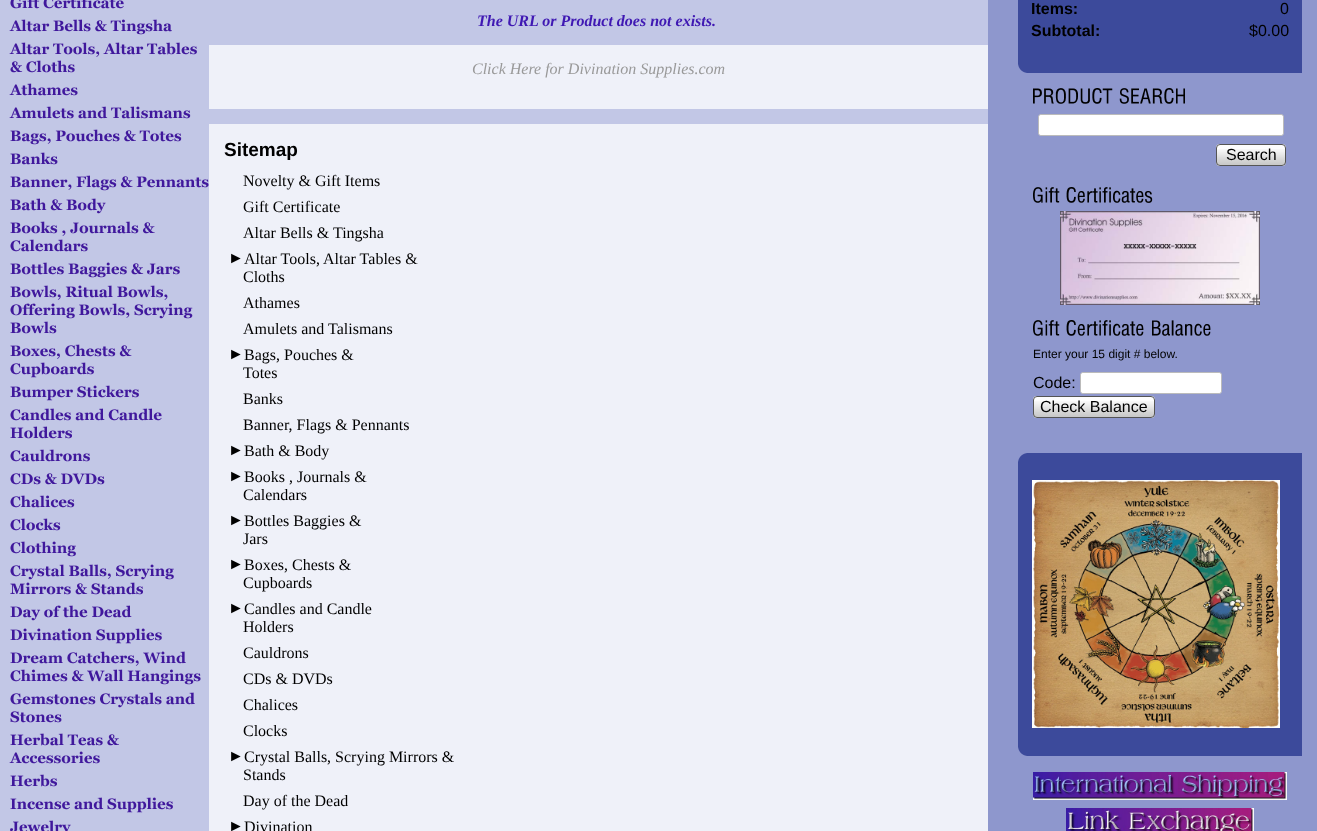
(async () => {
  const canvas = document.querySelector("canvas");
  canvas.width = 1317;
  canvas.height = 831;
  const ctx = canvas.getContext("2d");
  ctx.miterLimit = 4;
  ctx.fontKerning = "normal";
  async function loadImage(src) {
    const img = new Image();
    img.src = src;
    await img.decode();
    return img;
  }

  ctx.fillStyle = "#c2c7e6";
  ctx.fillRect(0, 0, 1317, 831);
  ctx.drawImage(await loadImage("img/1.png"), 10, 0, 114, 9);
  ctx.drawImage(await loadImage("img/2.png"), 9, 19, 163, 16);
  ctx.drawImage(await loadImage("img/3.png"), 9, 42, 188, 31);
  ctx.drawImage(await loadImage("img/4.png"), 9, 83, 69, 13);
  ctx.drawImage(await loadImage("img/5.png"), 9, 106, 182, 13);
  ctx.drawImage(await loadImage("img/6.png"), 10, 129, 172, 16);
  ctx.drawImage(await loadImage("img/7.png"), 10, 152, 48, 13);
  ctx.drawImage(await loadImage("img/8.png"), 10, 175, 199, 16);
  ctx.drawImage(await loadImage("img/9.png"), 10, 198, 96, 16);
  ctx.drawImage(await loadImage("img/10.png"), 10, 221, 145, 31);
  ctx.drawImage(await loadImage("img/11.png"), 10, 262, 170, 16);
  ctx.drawImage(await loadImage("img/12.png"), 10, 285, 183, 49);
  ctx.drawImage(await loadImage("img/13.png"), 10, 344, 122, 34);
  ctx.drawImage(await loadImage("img/14.png"), 10, 385, 129, 16);
  ctx.drawImage(await loadImage("img/15.png"), 10, 408, 152, 31);
  ctx.drawImage(await loadImage("img/16.png"), 10, 449, 80, 13);
  ctx.drawImage(await loadImage("img/17.png"), 10, 473, 95, 12);
  ctx.drawImage(await loadImage("img/18.png"), 10, 495, 65, 13);
  ctx.drawImage(await loadImage("img/19.png"), 10, 518, 51, 13);
  ctx.drawImage(await loadImage("img/20.png"), 10, 541, 66, 16);
  ctx.drawImage(await loadImage("img/21.png"), 10, 564, 164, 31);
  ctx.drawImage(await loadImage("img/22.png"), 10, 605, 122, 16);
  ctx.drawImage(await loadImage("img/23.png"), 10, 628, 152, 16);
  ctx.drawImage(await loadImage("img/24.png"), 10, 651, 191, 34);
  ctx.drawImage(await loadImage("img/25.png"), 10, 692, 185, 31);
  ctx.drawImage(await loadImage("img/26.png"), 9, 733, 110, 31);
  ctx.drawImage(await loadImage("img/27.png"), 10, 774, 47, 13);
  ctx.drawImage(await loadImage("img/28.png"), 10, 797, 163, 16);
  ctx.drawImage(await loadImage("img/29.png"), 10, 820, 61, 11);
  for (const [x, y, w, h, color] of [
    [209, 45, 779, 64, "#eff1f9"],
    [209, 124, 779, 707, "#eff1f9"],
    [988, 0, 329, 831, "#8e97cd"],
    [1018, 0, 284, 63, "#3c4a9b"],
  ]) {
    ctx.fillStyle = color;
    ctx.fillRect(x, y, w, h);
  }
  ctx.drawImage(await loadImage("img/30.png"), 1018, 63, 10, 10);
  ctx.fillRect(1028, 63, 274, 10);
  ctx.drawImage(await loadImage("img/31.png"), 1033, 88, 152, 16);
  ctx.fillStyle = "#ffffff";
  ctx.beginPath();
  ctx.roundRect(1038.5, 114.5, 245, 21, 2.5);
  ctx.fill();
  ctx.strokeStyle = "#bbbbbb";
  ctx.stroke();
  ctx.beginPath();
  ctx.roundRect(1039, 115, 244, 20, 3);
  ctx.fill();
  ctx.fillStyle = "#fdfdfd";
  ctx.beginPath();
  ctx.roundRect(1216, 144, 70, 22, 4);
  ctx.fill();
  ctx.drawImage(await loadImage("img/32.png"), 1216, 149, 70, 16);
  ctx.beginPath();
  ctx.roundRect(1216.5, 144.5, 69, 21, 3.5);
  ctx.strokeStyle = "#555555";
  ctx.stroke();
  ctx.drawImage(await loadImage("img/33.png"), 1033, 187, 120, 16);
  ctx.drawImage(await loadImage("img/34.png"), 1060, 211, 200, 94);
  ctx.drawImage(await loadImage("img/35.png"), 1033, 320, 178, 16);
  ctx.fillStyle = "#ffffff";
  ctx.beginPath();
  ctx.roundRect(1080.5, 372.5, 141, 21, 2.5);
  ctx.fill();
  ctx.strokeStyle = "#bbbbbb";
  ctx.stroke();
  ctx.beginPath();
  ctx.roundRect(1081, 373, 140, 20, 3);
  ctx.fill();
  ctx.fillStyle = "#fdfdfd";
  ctx.beginPath();
  ctx.roundRect(1033, 396, 122, 22, 4);
  ctx.fill();
  ctx.drawImage(await loadImage("img/36.png"), 1033, 401, 122, 16);
  ctx.beginPath();
  ctx.roundRect(1033.5, 396.5, 121, 21, 3.5);
  ctx.strokeStyle = "#555555";
  ctx.stroke();
  ctx.drawImage(await loadImage("img/37.png"), 1018, 453, 10, 10);
  ctx.fillStyle = "#3c4a9b";
  ctx.fillRect(1028, 453, 274, 10);
  ctx.fillRect(1018, 463, 284, 283);
  ctx.drawImage(await loadImage("img/38.png"), 1032, 480, 248, 248);
  ctx.drawImage(await loadImage("img/30.png"), 1018, 746, 10, 10);
  ctx.fillRect(1028, 746, 274, 10);
  ctx.drawImage(await loadImage("img/39.png"), 1033, 772, 254, 28);
  ctx.drawImage(await loadImage("img/40.png"), 1066, 808, 188, 23);
  ctx.font = "italic bold 16px Liberation Serif";
  ctx.fillStyle = "#3f18b3";
  ctx.fillText("The URL or Product does not exists.", 477, 26);
  ctx.font = "italic 16px Liberation Serif";
  ctx.fillStyle = "#999999";
  ctx.fillText("Click Here for Divination Supplies.com", 472, 74);
  ctx.font = "bold 19px Liberation Sans";
  ctx.fillStyle = "#000000";
  ctx.fillText("Sitemap", 224, 156);
  ctx.font = "16px Liberation Serif";
  for (const [text, x, y] of [
    ["Novelty & Gift Items", 243, 186],
    ["Gift Certificate", 243, 212],
    ["Altar Bells & Tingsha", 243, 238],
  ]) {
    ctx.fillText(text, x, y);
  }
  ctx.font = "16px Liberation Sans";
  ctx.fillText("►", 228, 263);
  ctx.font = "16px Liberation Serif";
  for (const [text, x, y] of [
    ["Altar Tools, Altar Tables &", 244, 264],
    ["Cloths", 243, 282],
    ["Athames", 243, 308],
    ["Amulets and Talismans", 243, 334],
  ]) {
    ctx.fillText(text, x, y);
  }
  ctx.font = "16px Liberation Sans";
  ctx.fillText("►", 228, 359);
  ctx.font = "16px Liberation Serif";
  for (const [text, x, y] of [
    ["Bags, Pouches &", 244, 360],
    ["Totes", 243, 378],
    ["Banks", 243, 404],
    ["Banner, Flags & Pennants", 243, 430],
  ]) {
    ctx.fillText(text, x, y);
  }
  ctx.font = "16px Liberation Sans";
  ctx.fillText("►", 228, 455);
  ctx.font = "16px Liberation Serif";
  ctx.fillText("Bath & Body", 244, 456);
  ctx.font = "16px Liberation Sans";
  ctx.fillText("►", 228, 481);
  ctx.font = "16px Liberation Serif";
  ctx.fillText("Books , Journals &", 244, 482);
  ctx.fillText("Calendars", 243, 500);
  ctx.font = "16px Liberation Sans";
  ctx.fillText("►", 228, 525);
  ctx.font = "16px Liberation Serif";
  ctx.fillText("Bottles Baggies &", 244, 526);
  ctx.fillText("Jars", 243, 544);
  ctx.font = "16px Liberation Sans";
  ctx.fillText("►", 228, 569);
  ctx.font = "16px Liberation Serif";
  ctx.fillText("Boxes, Chests &", 244, 570);
  ctx.fillText("Cupboards", 243, 588);
  ctx.font = "16px Liberation Sans";
  ctx.fillText("►", 228, 613);
  ctx.font = "16px Liberation Serif";
  for (const [text, x, y] of [
    ["Candles and Candle", 244, 614],
    ["Holders", 243, 632],
    ["Cauldrons", 243, 658],
    ["CDs & DVDs", 243, 684],
    ["Chalices", 243, 710],
    ["Clocks", 243, 736],
  ]) {
    ctx.fillText(text, x, y);
  }
  ctx.font = "16px Liberation Sans";
  ctx.fillText("►", 228, 761);
  ctx.font = "16px Liberation Serif";
  for (const [text, x, y] of [
    ["Crystal Balls, Scrying Mirrors &", 244, 762],
    ["Stands", 243, 780],
    ["Day of the Dead", 243, 806],
  ]) {
    ctx.fillText(text, x, y);
  }
  ctx.font = "16px Liberation Sans";
  ctx.fillText("►", 228, 831);
  ctx.font = "16px Liberation Serif";
  ctx.fillText("Divination", 244, 832);
  ctx.font = "bold 16px Liberation Sans";
  ctx.fillText("Items:", 1031, 14);
  ctx.font = "16px Liberation Sans";
  ctx.fillText("0", 1280, 14);
  ctx.font = "bold 16px Liberation Sans";
  ctx.fillText("Subtotal:", 1031, 36);
  ctx.font = "16px Liberation Sans";
  ctx.fillText("$0.00", 1249, 36);
  ctx.fillText("Search", 1226, 160);
  ctx.font = "12px Liberation Sans";
  ctx.fillText("Enter your 15 digit # below.", 1033, 358);
  ctx.font = "16px Liberation Sans";
  ctx.fillText("Code:", 1033, 388);
  ctx.fillText("Check Balance", 1040, 412);
})();
